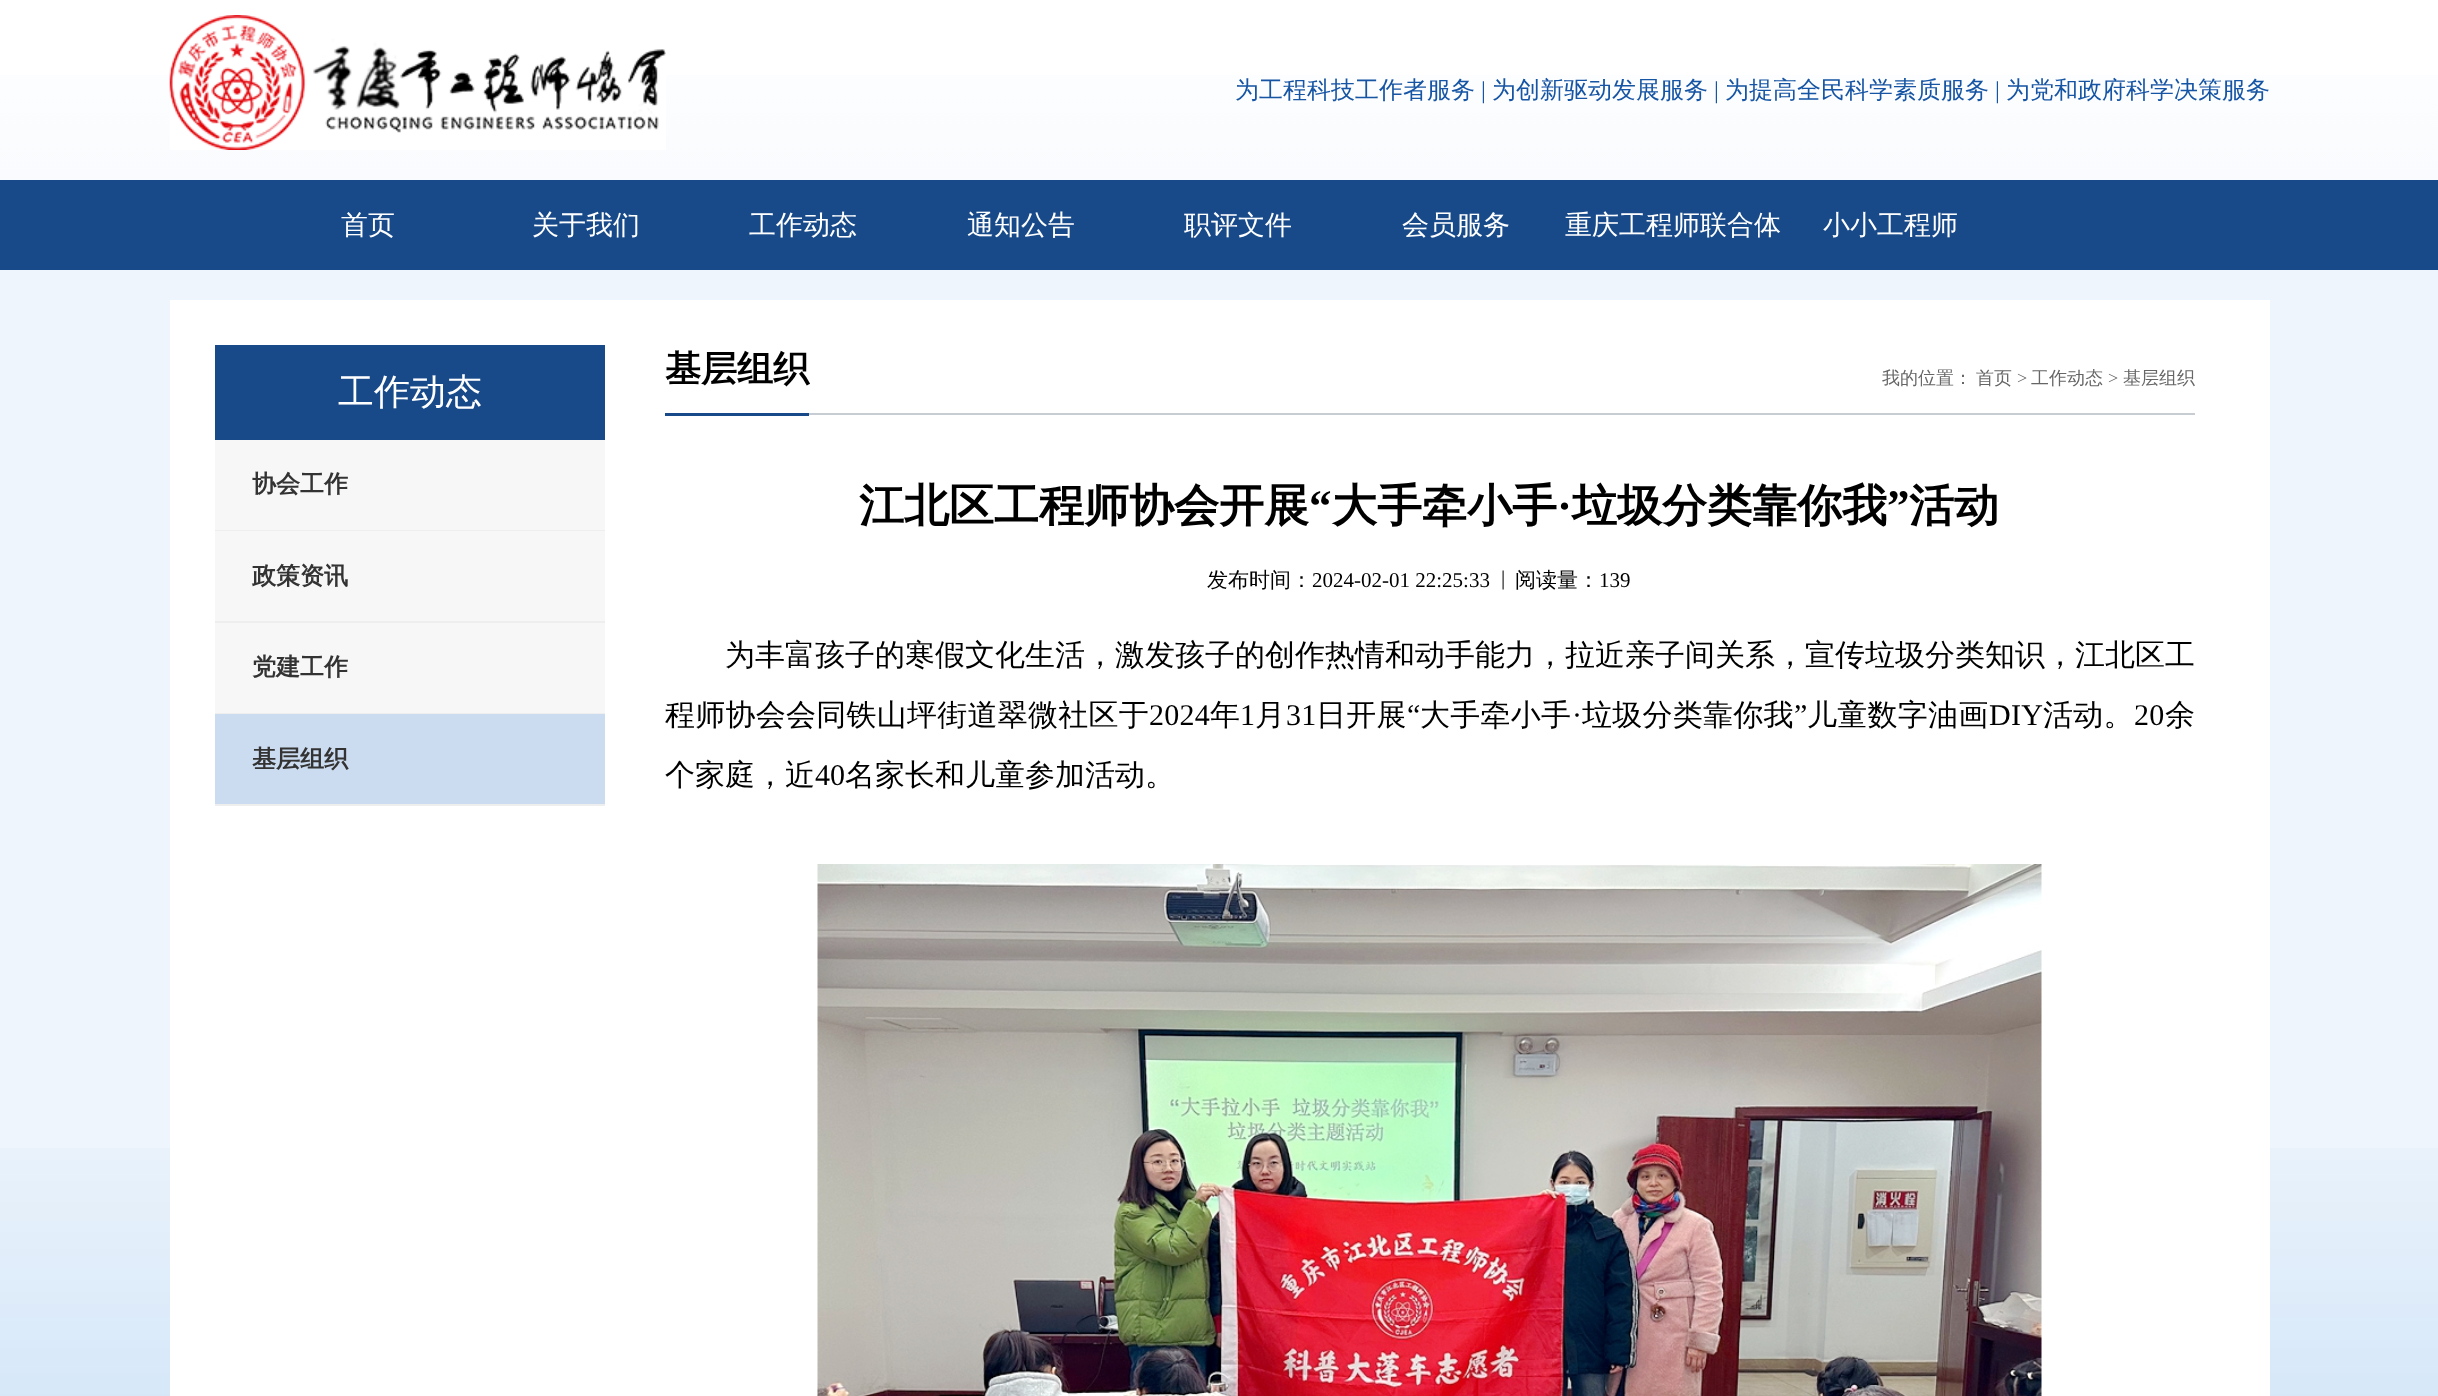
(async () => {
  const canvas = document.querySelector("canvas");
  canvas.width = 2438;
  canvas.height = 1396;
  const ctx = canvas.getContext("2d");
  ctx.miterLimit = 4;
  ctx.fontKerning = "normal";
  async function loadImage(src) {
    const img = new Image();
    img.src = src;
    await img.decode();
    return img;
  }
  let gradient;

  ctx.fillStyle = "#ffffff";
  ctx.fillRect(0, 0, 2438, 1396);
  gradient = ctx.createLinearGradient(1220, 0, 1220, 180);
  gradient.addColorStop(0, "#ffffff");
  gradient.addColorStop(1, "#f9fbfe");
  ctx.fillStyle = gradient;
  ctx.fillRect(0, 75, 2438, 105);
  ctx.drawImage(await loadImage("img/1.png"), 169, 15, 497, 135);
  ctx.fillStyle = "#184a8a";
  ctx.fillRect(0, 180, 2438, 90);
  ctx.fillStyle = "#eef5fd";
  ctx.fillRect(0, 270, 2438, 878);
  ctx.drawImage(await loadImage("img/2.png"), 0, 1148, 2438, 248);
  for (const [x, y, w, h, color] of [
    [170, 300, 2100, 1096, "#ffffff"],
    [215, 345, 390, 95, "#184a8a"],
    [215, 530, 390, 1, "#eeeeee"],
    [215, 440, 390, 90, "#f7f7f7"],
    [215, 621, 390, 2, "#eeeeee"],
    [215, 531, 390, 90, "#f7f7f7"],
    [215, 713, 390, 1, "#eeeeee"],
    [215, 623, 390, 90, "#f7f7f7"],
    [215, 804, 390, 2, "#eeeeee"],
    [215, 714, 390, 90, "#ccdcf0"],
    [809, 413, 1386, 2, "#c7cdd3"],
    [665, 413, 144, 3, "#184a8a"],
  ]) {
    ctx.fillStyle = color;
    ctx.fillRect(x, y, w, h);
  }
  ctx.drawImage(await loadImage("img/3.png"), 817, 864, 1225, 532);
  ctx.font = "500 24px WenQuanYi Zen Hei";
  ctx.fillStyle = "#1655a4";
  ctx.fillText("为工程科技工作者服务", 1235, 98);
  ctx.font = "24px Liberation Serif";
  ctx.fillText("|", 1481, 98);
  ctx.font = "500 24px WenQuanYi Zen Hei";
  ctx.fillText("为创新驱动发展服务", 1492, 98);
  ctx.font = "24px Liberation Serif";
  ctx.fillText("|", 1714, 98);
  ctx.font = "500 24px WenQuanYi Zen Hei";
  ctx.fillText("为提高全民科学素质服务", 1725, 98);
  ctx.font = "24px Liberation Serif";
  ctx.fillText("|", 1995, 98);
  ctx.font = "500 24px WenQuanYi Zen Hei";
  ctx.fillText("为党和政府科学决策服务", 2006, 98);
  ctx.font = "500 27px WenQuanYi Zen Hei";
  ctx.fillStyle = "#ffffff";
  for (const [text, x, y] of [
    ["首页", 341, 234],
    ["关于我们", 532, 234],
    ["工作动态", 749, 234],
    ["通知公告", 967, 234],
    ["职评文件", 1184, 234],
    ["会员服务", 1402, 234],
    ["重庆工程师联合体", 1565, 234],
    ["小小工程师", 1823, 234],
  ]) {
    ctx.fillText(text, x, y);
  }
  ctx.font = "500 36px WenQuanYi Zen Hei";
  ctx.fillText("工作动态", 338, 404);
  ctx.font = "bold 24px WenQuanYi Zen Hei";
  ctx.fillStyle = "#333333";
  for (const [text, x, y] of [
    ["协会工作", 252, 492],
    ["政策资讯", 252, 584],
    ["党建工作", 252, 675],
    ["基层组织", 252, 767],
  ]) {
    ctx.fillText(text, x, y);
  }
  ctx.font = "bold 36px WenQuanYi Zen Hei";
  ctx.fillStyle = "#000000";
  ctx.fillText("基层组织", 665, 381);
  ctx.font = "500 18px WenQuanYi Zen Hei";
  ctx.fillStyle = "#666666";
  ctx.fillText("我的位置：", 1882, 384);
  ctx.fillText("首页", 1976, 384);
  ctx.font = "18px Liberation Serif";
  ctx.fillText(">", 2017, 384);
  ctx.font = "500 18px WenQuanYi Zen Hei";
  ctx.fillText("工作动态", 2031, 384);
  ctx.font = "18px Liberation Serif";
  ctx.fillText(">", 2108, 384);
  ctx.font = "500 18px WenQuanYi Zen Hei";
  ctx.fillText("基层组织", 2123, 384);
  ctx.font = "bold 45px WenQuanYi Zen Hei";
  ctx.fillStyle = "#000000";
  ctx.fillText("江北区工程师协会开展", 859, 521);
  ctx.font = "bold 45px Liberation Serif";
  ctx.fillText("“", 1309, 521);
  ctx.font = "bold 45px WenQuanYi Zen Hei";
  ctx.fillText("大手牵小手", 1332, 521);
  ctx.fillText("垃圾分类靠你我", 1572, 521);
  ctx.font = "bold 45px Liberation Serif";
  ctx.fillText("”", 1887, 521);
  ctx.font = "bold 45px WenQuanYi Zen Hei";
  ctx.fillText("活动", 1909, 521);
  ctx.font = "bold 45px Liberation Serif";
  ctx.fillText("·", 1557, 521);
  ctx.font = "500 21px WenQuanYi Zen Hei";
  ctx.fillText("发布时间：", 1207, 587);
  ctx.font = "21px Liberation Serif";
  ctx.fillText("2024-02-01 22:25:33", 1312, 587);
  ctx.fillText("|", 1501, 585);
  ctx.font = "500 21px WenQuanYi Zen Hei";
  ctx.fillText("阅读量：", 1515, 587);
  ctx.font = "21px Liberation Serif";
  ctx.fillText("139", 1599, 587);
  ctx.font = "500 30px WenQuanYi Zen Hei";
  ctx.fillText("为丰富孩子的寒假文化生活，激发孩子的创作热情和动手能力，拉近亲子间关系，宣传垃圾分类知识，江北区工", 725, 665);
  ctx.letterSpacing = "0.25px";
  ctx.fillText("程师协会会同铁山坪街道翠微社区于", 665, 725);
  ctx.font = "30px Liberation Serif";
  ctx.fillText("2024", 1149, 725);
  ctx.font = "500 30px WenQuanYi Zen Hei";
  ctx.fillText("年", 1210, 725);
  ctx.font = "30px Liberation Serif";
  ctx.fillText("1", 1240, 725);
  ctx.font = "500 30px WenQuanYi Zen Hei";
  ctx.fillText("月", 1255, 725);
  ctx.font = "30px Liberation Serif";
  ctx.fillText("31", 1286, 725);
  ctx.font = "500 30px WenQuanYi Zen Hei";
  ctx.fillText("日开展", 1316, 725);
  ctx.font = "30px Liberation Serif";
  ctx.fillText("“", 1407, 725);
  ctx.font = "500 30px WenQuanYi Zen Hei";
  ctx.fillText("大手牵小手", 1420, 725);
  ctx.font = "30px Liberation Serif";
  ctx.fillText("·", 1572, 725);
  ctx.font = "500 30px WenQuanYi Zen Hei";
  ctx.fillText("垃圾分类靠你我", 1582, 725);
  ctx.font = "30px Liberation Serif";
  ctx.fillText("”", 1794, 725);
  ctx.font = "500 30px WenQuanYi Zen Hei";
  ctx.fillText("儿童数字油画", 1807, 725);
  ctx.font = "30px Liberation Serif";
  ctx.fillText("DIY", 1989, 725);
  ctx.font = "500 30px WenQuanYi Zen Hei";
  ctx.fillText("活动。", 2043, 725);
  ctx.font = "30px Liberation Serif";
  ctx.fillText("20", 2134, 725);
  ctx.font = "500 30px WenQuanYi Zen Hei";
  ctx.fillText("余", 2165, 725);
  ctx.letterSpacing = "0px";
  ctx.fillText("个家庭，近", 665, 785);
  ctx.font = "30px Liberation Serif";
  ctx.fillText("40", 815, 785);
  ctx.font = "500 30px WenQuanYi Zen Hei";
  ctx.fillText("名家长和儿童参加活动。", 845, 785);
})();
